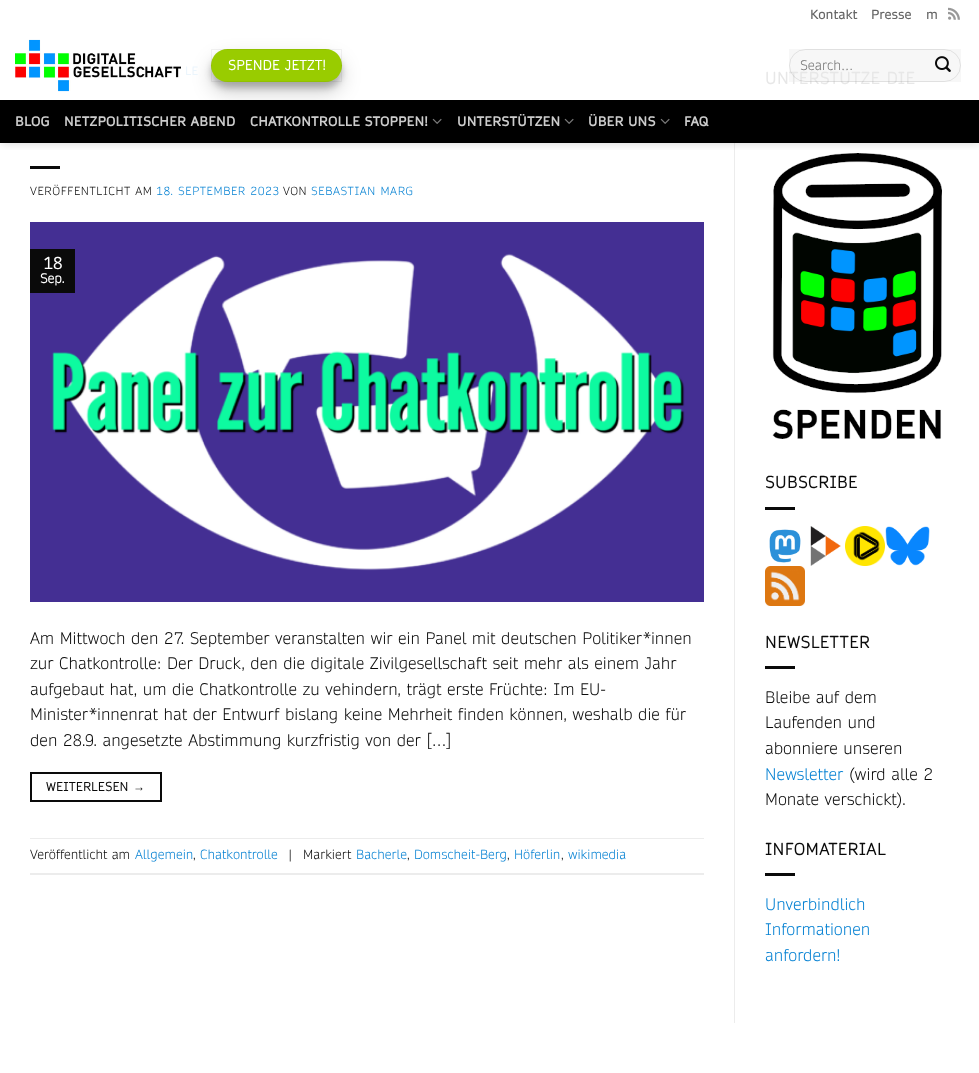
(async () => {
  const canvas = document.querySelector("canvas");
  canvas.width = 979;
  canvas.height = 1073;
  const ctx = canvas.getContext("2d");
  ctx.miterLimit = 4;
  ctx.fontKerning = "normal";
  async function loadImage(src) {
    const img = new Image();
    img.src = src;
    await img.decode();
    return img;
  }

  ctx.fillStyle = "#ffffff";
  ctx.fillRect(0, 0, 979, 1073);
  ctx.fillStyle = "#ececec";
  ctx.fillRect(734, 143, 1, 880);
  ctx.drawImage(await loadImage("img/6.png"), 772, 153, 170, 286);
  ctx.save();
  ctx.beginPath();
  ctx.rect(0, 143, 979, 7);
  ctx.clip();
  ctx.fillStyle = "rgba(0, 0, 0, 0.15)";
  ctx.filter = "blur(5px)";
  ctx.beginPath();
  ctx.rect(1, 1, 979, 143);
  ctx.fill();
  ctx.filter = "none";
  ctx.restore();
  ctx.drawImage(await loadImage("img/1.png"), 948, 7, 12, 13);
  ctx.drawImage(await loadImage("img/2.png"), 15, 39, 166, 53);
  ctx.fillStyle = "rgba(0, 0, 0, 0.22)";
  ctx.filter = "blur(3px)";
  ctx.beginPath();
  ctx.roundRect(211, 55, 131, 33, 16.5);
  ctx.fill();
  ctx.filter = "none";
  ctx.fillStyle = "#000000";
  ctx.fillRect(0, 100, 979, 43);
  ctx.fillStyle = "rgba(0, 0, 0, 0.19)";
  ctx.filter = "blur(10px)";
  ctx.beginPath();
  ctx.roundRect(211, 59, 131, 33, 16.5);
  ctx.fill();
  ctx.filter = "none";
  ctx.fillStyle = "#99cc00";
  ctx.beginPath();
  ctx.roundRect(211, 49, 131, 33, 16.5);
  ctx.fill();
  ctx.strokeStyle = "rgba(0, 0, 0, 0.05)";
  ctx.strokeRect(211.5, 49.5, 130, 32);
  ctx.fillStyle = "rgba(0, 0, 0, 0.03)";
  ctx.fillRect(789, 49, 172, 33);
  ctx.drawImage(await loadImage("img/4.png"), 432, 118, 10, 6);
  ctx.drawImage(await loadImage("img/4.png"), 564, 118, 10, 6);
  ctx.drawImage(await loadImage("img/4.png"), 660, 118, 10, 6);
  ctx.fillStyle = "#0a0a0a";
  ctx.fillRect(30, 166, 30, 3);
  ctx.drawImage(await loadImage("img/5.png"), 30, 222, 674, 380);
  ctx.fillRect(30, 249, 45, 44);
  ctx.strokeStyle = "#0a0a0a";
  ctx.lineWidth = 2;
  ctx.strokeRect(31, 773, 130, 28);
  for (const [x, y, w, h, color] of [
    [30, 838, 674, 1, "#ececec"],
    [30, 873, 674, 2, "#ececec"],
    [765, 507, 30, 3, "#0a0a0a"],
  ]) {
    ctx.fillStyle = color;
    ctx.fillRect(x, y, w, h);
  }
  ctx.drawImage(await loadImage("img/7.png"), 769, 529, 32, 34);
  ctx.drawImage(await loadImage("img/8.png"), 810, 526, 31, 40);
  ctx.drawImage(await loadImage("img/9.png"), 845, 526, 40, 40);
  ctx.drawImage(await loadImage("img/10.png"), 885, 526, 45, 40);
  ctx.drawImage(await loadImage("img/11.png"), 765, 566, 40, 40);
  ctx.fillRect(765, 666, 30, 3);
  ctx.fillRect(765, 873, 30, 3);
  ctx.font = "12.75px 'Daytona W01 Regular'";
  ctx.fillStyle = "#656565";
  for (const [text, x, y] of [
    ["Kontakt", 810, 19],
    ["Presse", 871, 19],
    ["m", 926, 19],
  ]) {
    ctx.fillText(text, x, y);
  }
  ctx.letterSpacing = "0.4px";
  ctx.font = "bold 13.25px 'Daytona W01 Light'";
  ctx.fillStyle = "#ffffff";
  ctx.fillText("SPENDE JETZT!", 228, 70);
  ctx.letterSpacing = "0.25px";
  ctx.font = "bold 12.75px 'Daytona W01 Regular'";
  ctx.fillStyle = "#cccccc";
  for (const [text, x, y] of [
    ["BLOG", 15, 126],
    ["NETZPOLITISCHER ABEND", 64, 126],
    ["CHATKONTROLLE STOPPEN!", 250, 126],
    ["UNTERSTÜTZEN", 457, 126],
    ["ÜBER UNS", 588, 126],
    ["FAQ", 684, 126],
  ]) {
    ctx.fillText(text, x, y);
  }
  ctx.letterSpacing = "0.6px";
  ctx.font = "bold 11.25px 'Daytona W01 Light'";
  ctx.fillStyle = "#ebf5fc";
  ctx.fillText("LE", 185, 75);
  ctx.font = "300 11.25px 'Daytona W01 Light'";
  ctx.fillStyle = "#0a0a0a";
  ctx.fillText("VERÖFFENTLICHT AM", 30, 195);
  ctx.fillStyle = "#0782d3";
  ctx.fillText("18. SEPTEMBER 2023", 156, 195);
  ctx.fillStyle = "#0a0a0a";
  ctx.fillText("VON", 283, 195);
  ctx.fillStyle = "#0782d3";
  ctx.fillText("SEBASTIAN MARG", 311, 195);
  ctx.letterSpacing = "0px";
  ctx.font = "bold 16px 'Daytona W01 Light'";
  ctx.fillStyle = "#ffffff";
  ctx.fillText("18", 43, 269);
  ctx.font = "bold 12.75px 'Daytona W01 Light'";
  ctx.fillText("Sep.", 40, 283);
  ctx.font = "300 16px 'Daytona W01 Light'";
  ctx.fillStyle = "#0a0a0a";
  for (const [text, x, y] of [
    ["Am Mittwoch den 27. September veranstalten wir ein Panel mit deutschen Politiker*innen", 30, 644],
    ["zur Chatkontrolle: Der Druck, den die digitale Zivilgesellschaft seit mehr als einem Jahr", 30, 669],
    ["aufgebaut hat, um die Chatkontrolle zu vehindern, trägt erste Früchte: Im EU-", 30, 695],
    ["Minister*innenrat hat der Entwurf bislang keine Mehrheit finden können, weshalb die für", 30, 720],
    ["den 28.9. angesetzte Abstimmung kurzfristig von der […]", 30, 746],
  ]) {
    ctx.fillText(text, x, y);
  }
  ctx.letterSpacing = "0.4px";
  ctx.font = "bold 12px 'Daytona W01 Light'";
  ctx.fillText("WEITERLESEN", 46, 791);
  ctx.font = "bold 12px Liberation Serif";
  ctx.fillText("→", 133, 791);
  ctx.letterSpacing = "0px";
  ctx.font = "300 12.75px 'Daytona W01 Light'";
  ctx.fillText("Veröffentlicht am", 30, 859);
  ctx.fillStyle = "#0782d3";
  ctx.fillText("Allgemein", 135, 859);
  ctx.fillStyle = "#0a0a0a";
  ctx.fillText(",", 193, 859);
  ctx.fillStyle = "#0782d3";
  ctx.fillText("Chatkontrolle", 200, 859);
  ctx.fillStyle = "#0a0a0a";
  ctx.fillText("|", 287, 859);
  ctx.fillText("Markiert", 303, 859);
  ctx.fillStyle = "#0782d3";
  ctx.fillText("Bacherle", 356, 859);
  ctx.fillStyle = "#0a0a0a";
  ctx.fillText(",", 407, 859);
  ctx.fillStyle = "#0782d3";
  ctx.fillText("Domscheit-Berg", 414, 859);
  ctx.fillStyle = "#0a0a0a";
  ctx.fillText(",", 507, 859);
  ctx.fillStyle = "#0782d3";
  ctx.fillText("Höferlin", 514, 859);
  ctx.fillStyle = "#0a0a0a";
  ctx.fillText(",", 561, 859);
  ctx.fillStyle = "#0782d3";
  ctx.fillText("wikimedia", 568, 859);
  ctx.letterSpacing = "0.75px";
  ctx.font = "bold 16px 'Daytona W01 Light'";
  ctx.fillStyle = "#e7e7e7";
  ctx.fillText("UNTERSTÜTZE DIE", 765, 84);
  ctx.beginPath();
  ctx.roundRect(789.5, 49.5, 171, 32, 16);
  ctx.strokeStyle = "rgba(0, 0, 0, 0.09)";
  ctx.lineWidth = 1;
  ctx.stroke();
  ctx.drawImage(await loadImage("img/3.png"), 935, 56, 16, 16);
  ctx.letterSpacing = "0px";
  ctx.font = "300 13.25px 'Daytona W01 Light'";
  ctx.fillStyle = "#757575";
  ctx.fillText("Search…", 800, 70);
  ctx.letterSpacing = "0.75px";
  ctx.font = "bold 16px 'Daytona W01 Light'";
  ctx.fillStyle = "#0a0a0a";
  ctx.fillText("SUBSCRIBE", 765, 488);
  ctx.fillText("NEWSLETTER", 765, 648);
  ctx.letterSpacing = "0px";
  ctx.font = "300 16px 'Daytona W01 Light'";
  for (const [text, x, y] of [
    ["Bleibe auf dem", 765, 703],
    ["Laufenden und", 765, 728],
    ["abonniere unseren", 765, 754],
  ]) {
    ctx.fillText(text, x, y);
  }
  ctx.fillStyle = "#0782d3";
  ctx.fillText("Newsletter", 765, 780);
  ctx.fillStyle = "#0a0a0a";
  ctx.fillText("(wird alle 2", 849, 780);
  ctx.fillText("Monate verschickt).", 765, 805);
  ctx.letterSpacing = "0.75px";
  ctx.font = "bold 16px 'Daytona W01 Light'";
  ctx.fillText("INFOMATERIAL", 765, 855);
  ctx.letterSpacing = "0px";
  ctx.font = "300 16px 'Daytona W01 Light'";
  ctx.fillStyle = "#0782d3";
  for (const [text, x, y] of [
    ["Unverbindlich", 765, 910],
    ["Informationen", 765, 935],
    ["anfordern!", 765, 961],
  ]) {
    ctx.fillText(text, x, y);
  }
})();
